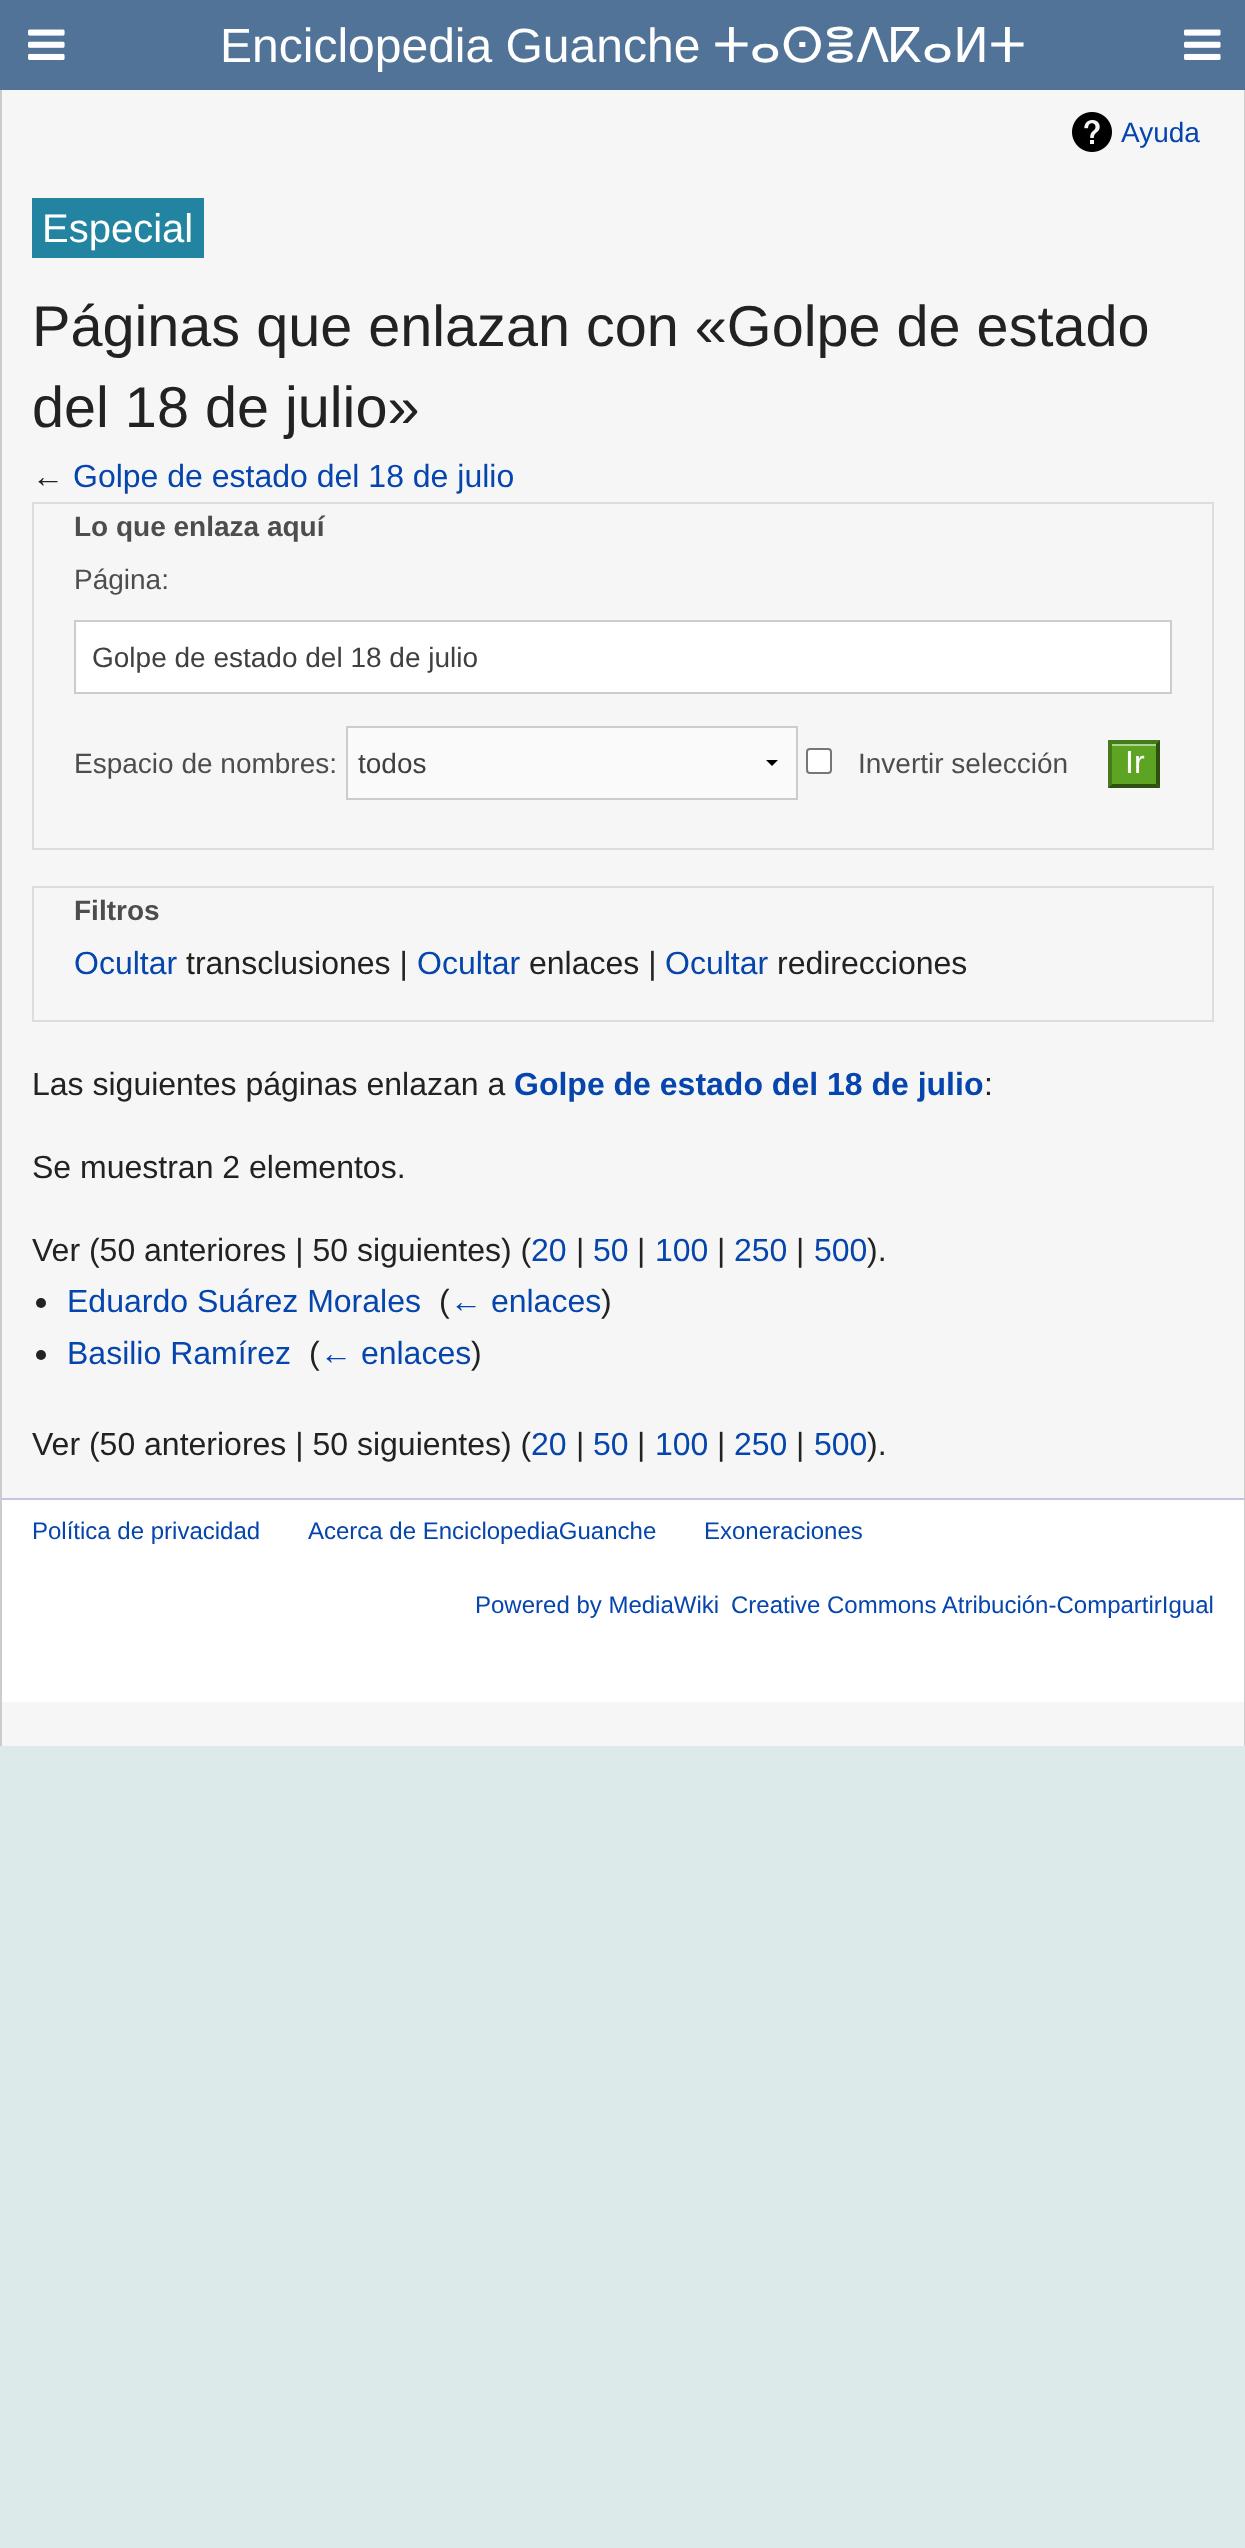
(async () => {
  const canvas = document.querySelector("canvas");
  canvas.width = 1245;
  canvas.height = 2548;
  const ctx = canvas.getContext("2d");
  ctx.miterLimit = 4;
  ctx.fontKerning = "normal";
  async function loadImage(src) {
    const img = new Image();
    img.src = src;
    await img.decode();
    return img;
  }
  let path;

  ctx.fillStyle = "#dceaea";
  ctx.fillRect(0, 0, 1245, 2548);
  ctx.fillStyle = "#517398";
  ctx.fillRect(0, 0, 1245, 90);
  ctx.drawImage(await loadImage("img/1.png"), 28, 29, 37, 31);
  ctx.drawImage(await loadImage("img/1.png"), 1184, 29, 37, 31);
  for (const [x, y, w, h, color] of [
    [2, 90, 1242, 1656, "#f6f6f6"],
    [1244, 90, 1, 1656, "#cccccc"],
    [0, 90, 2, 1656, "#cccccc"],
  ]) {
    ctx.fillStyle = color;
    ctx.fillRect(x, y, w, h);
  }
  ctx.drawImage(await loadImage("img/2.png"), 1072, 112, 40, 40);
  ctx.fillStyle = "#2284a1";
  ctx.fillRect(32, 198, 172, 60);
  ctx.strokeStyle = "#dddddd";
  ctx.lineWidth = 2;
  ctx.strokeRect(33, 503, 1180, 346);
  ctx.fillStyle = "#ffffff";
  ctx.beginPath();
  ctx.rect(75, 621, 1096, 72);
  ctx.fill();
  ctx.strokeStyle = "#cccccc";
  ctx.stroke();
  ctx.fillStyle = "#fafafa";
  ctx.fillRect(348, 728, 448, 70);
  ctx.fillStyle = "#000000";
  path = new Path2D("M778 760L772 766L766 760Z");
  ctx.fill(path);
  ctx.strokeRect(347, 727, 450, 72);
  ctx.fillStyle = "#ffffff";
  ctx.beginPath();
  ctx.roundRect(807, 749, 24, 24, 3);
  ctx.fill();
  ctx.strokeStyle = "#767676";
  ctx.stroke();
  ctx.fillStyle = "#5da423";
  ctx.fillRect(1108, 740, 52, 48);
  ctx.fillStyle = "#aed291";
  ctx.fillRect(1112, 744, 44, 2);
  ctx.fillStyle = "#457a1a";
  path = new Path2D("M1108 740H1160L1156 744H1112Z");
  ctx.fill(path);
  ctx.fillStyle = "#2e5111";
  path = new Path2D("M1160 740V788L1156 784V744Z");
  ctx.fill(path);
  path = new Path2D("M1160 788H1108L1112 784H1156Z");
  ctx.fill(path);
  ctx.fillStyle = "#457a1a";
  path = new Path2D("M1108 788V740L1112 744V784Z");
  ctx.fill(path);
  ctx.strokeStyle = "#dddddd";
  ctx.strokeRect(33, 887, 1180, 134);
  ctx.fillStyle = "#222222";
  ctx.beginPath();
  ctx.arc(41, 1303, 5, 0, Math.PI * 2);
  ctx.fill();
  ctx.beginPath();
  ctx.arc(41, 1355, 5, 0, Math.PI * 2);
  ctx.fill();
  ctx.fillStyle = "#ffffff";
  ctx.fillRect(2, 1500, 1242, 202);
  ctx.fillStyle = "#c3c3e5";
  ctx.fillRect(2, 1498, 1242, 2);
  ctx.font = "48px Liberation Sans";
  ctx.fillStyle = "#ffffff";
  ctx.fillText("Enciclopedia Guanche", 220, 62);
  ctx.font = "48px DejaVu Sans";
  ctx.fillText("ⵜⴰⵙⴻⴷⴽⴰⵍⵜ", 713, 62);
  ctx.font = "28px Liberation Sans";
  ctx.fillStyle = "#0645ad";
  ctx.fillText("Ayuda", 1121, 142);
  ctx.font = "40px Liberation Sans";
  ctx.fillStyle = "#ffffff";
  ctx.fillText("Especial", 42, 242);
  ctx.font = "57.6px Liberation Sans";
  ctx.fillStyle = "#222222";
  ctx.fillText("Páginas que enlazan con «Golpe de estado", 32, 346);
  ctx.fillText("del 18 de julio»", 32, 427);
  ctx.font = "32px Liberation Sans";
  ctx.fillText("←", 32, 487);
  ctx.fillStyle = "#0645ad";
  ctx.fillText("Golpe de estado del 18 de julio", 73, 487);
  ctx.font = "bold 28px Liberation Sans";
  ctx.fillStyle = "#4d4d4d";
  ctx.fillText("Lo que enlaza aquí", 74, 536);
  ctx.font = "28px Liberation Sans";
  ctx.fillText("Página:", 74, 589);
  ctx.fillStyle = "#404040";
  ctx.fillText("Golpe de estado del 18 de julio", 92, 667);
  ctx.fillStyle = "#4d4d4d";
  ctx.fillText("Espacio de nombres:", 74, 773);
  ctx.fillStyle = "#404040";
  ctx.fillText("todos", 358, 773);
  ctx.fillStyle = "#4d4d4d";
  ctx.fillText("Invertir selección", 858, 773);
  ctx.font = "32px Liberation Sans";
  ctx.fillStyle = "#ffffff";
  ctx.fillText("Ir", 1125, 773);
  ctx.font = "bold 28px Liberation Sans";
  ctx.fillStyle = "#4d4d4d";
  ctx.fillText("Filtros", 74, 920);
  ctx.font = "32px Liberation Sans";
  ctx.fillStyle = "#0645ad";
  ctx.fillText("Ocultar", 74, 974);
  ctx.fillStyle = "#222222";
  ctx.fillText("transclusiones |", 186, 974);
  ctx.fillStyle = "#0645ad";
  ctx.fillText("Ocultar", 417, 974);
  ctx.fillStyle = "#222222";
  ctx.fillText("enlaces |", 529, 974);
  ctx.fillStyle = "#0645ad";
  ctx.fillText("Ocultar", 665, 974);
  ctx.fillStyle = "#222222";
  ctx.fillText("redirecciones", 777, 974);
  ctx.fillText("Las siguientes páginas enlazan a", 32, 1095);
  ctx.font = "bold 32px Liberation Sans";
  ctx.fillStyle = "#0645ad";
  ctx.fillText("Golpe de estado del 18 de julio", 514, 1095);
  ctx.font = "32px Liberation Sans";
  ctx.fillStyle = "#222222";
  for (const [text, x, y] of [
    [":", 984, 1095],
    ["Se muestran 2 elementos.", 32, 1178],
    ["Ver (50 anteriores | 50 siguientes) (", 32, 1261],
  ]) {
    ctx.fillText(text, x, y);
  }
  ctx.fillStyle = "#0645ad";
  ctx.fillText("20", 531, 1261);
  ctx.fillStyle = "#222222";
  ctx.fillText("|", 576, 1261);
  ctx.fillStyle = "#0645ad";
  ctx.fillText("50", 593, 1261);
  ctx.fillStyle = "#222222";
  ctx.fillText("|", 637, 1261);
  ctx.fillStyle = "#0645ad";
  ctx.fillText("100", 655, 1261);
  ctx.fillStyle = "#222222";
  ctx.fillText("|", 717, 1261);
  ctx.fillStyle = "#0645ad";
  ctx.fillText("250", 734, 1261);
  ctx.fillStyle = "#222222";
  ctx.fillText("|", 796, 1261);
  ctx.fillStyle = "#0645ad";
  ctx.fillText("500", 814, 1261);
  ctx.fillStyle = "#222222";
  ctx.fillText(").", 867, 1261);
  ctx.fillStyle = "#0645ad";
  ctx.fillText("Eduardo Suárez Morales", 67, 1312);
  ctx.fillStyle = "#222222";
  ctx.fillText("(", 439, 1312);
  ctx.fillStyle = "#0645ad";
  ctx.fillText("← enlaces", 450, 1312);
  ctx.fillStyle = "#222222";
  ctx.fillText(")", 601, 1312);
  ctx.fillStyle = "#0645ad";
  ctx.fillText("Basilio Ramírez", 67, 1364);
  ctx.fillStyle = "#222222";
  ctx.fillText("(", 309, 1364);
  ctx.fillStyle = "#0645ad";
  ctx.fillText("← enlaces", 320, 1364);
  ctx.fillStyle = "#222222";
  ctx.fillText(")", 471, 1364);
  ctx.fillText("Ver (50 anteriores | 50 siguientes) (", 32, 1455);
  ctx.fillStyle = "#0645ad";
  ctx.fillText("20", 531, 1455);
  ctx.fillStyle = "#222222";
  ctx.fillText("|", 576, 1455);
  ctx.fillStyle = "#0645ad";
  ctx.fillText("50", 593, 1455);
  ctx.fillStyle = "#222222";
  ctx.fillText("|", 637, 1455);
  ctx.fillStyle = "#0645ad";
  ctx.fillText("100", 655, 1455);
  ctx.fillStyle = "#222222";
  ctx.fillText("|", 717, 1455);
  ctx.fillStyle = "#0645ad";
  ctx.fillText("250", 734, 1455);
  ctx.fillStyle = "#222222";
  ctx.fillText("|", 796, 1455);
  ctx.fillStyle = "#0645ad";
  ctx.fillText("500", 814, 1455);
  ctx.fillStyle = "#222222";
  ctx.fillText(").", 867, 1455);
  ctx.font = "24px Liberation Sans";
  ctx.fillStyle = "#0645ad";
  for (const [text, x, y] of [
    ["Política de privacidad", 32, 1539],
    ["Acerca de EnciclopediaGuanche", 308, 1539],
    ["Exoneraciones", 704, 1539],
    ["Powered by MediaWiki", 475, 1613],
    ["Creative Commons Atribución-CompartirIgual", 731, 1613],
  ]) {
    ctx.fillText(text, x, y);
  }
})();
